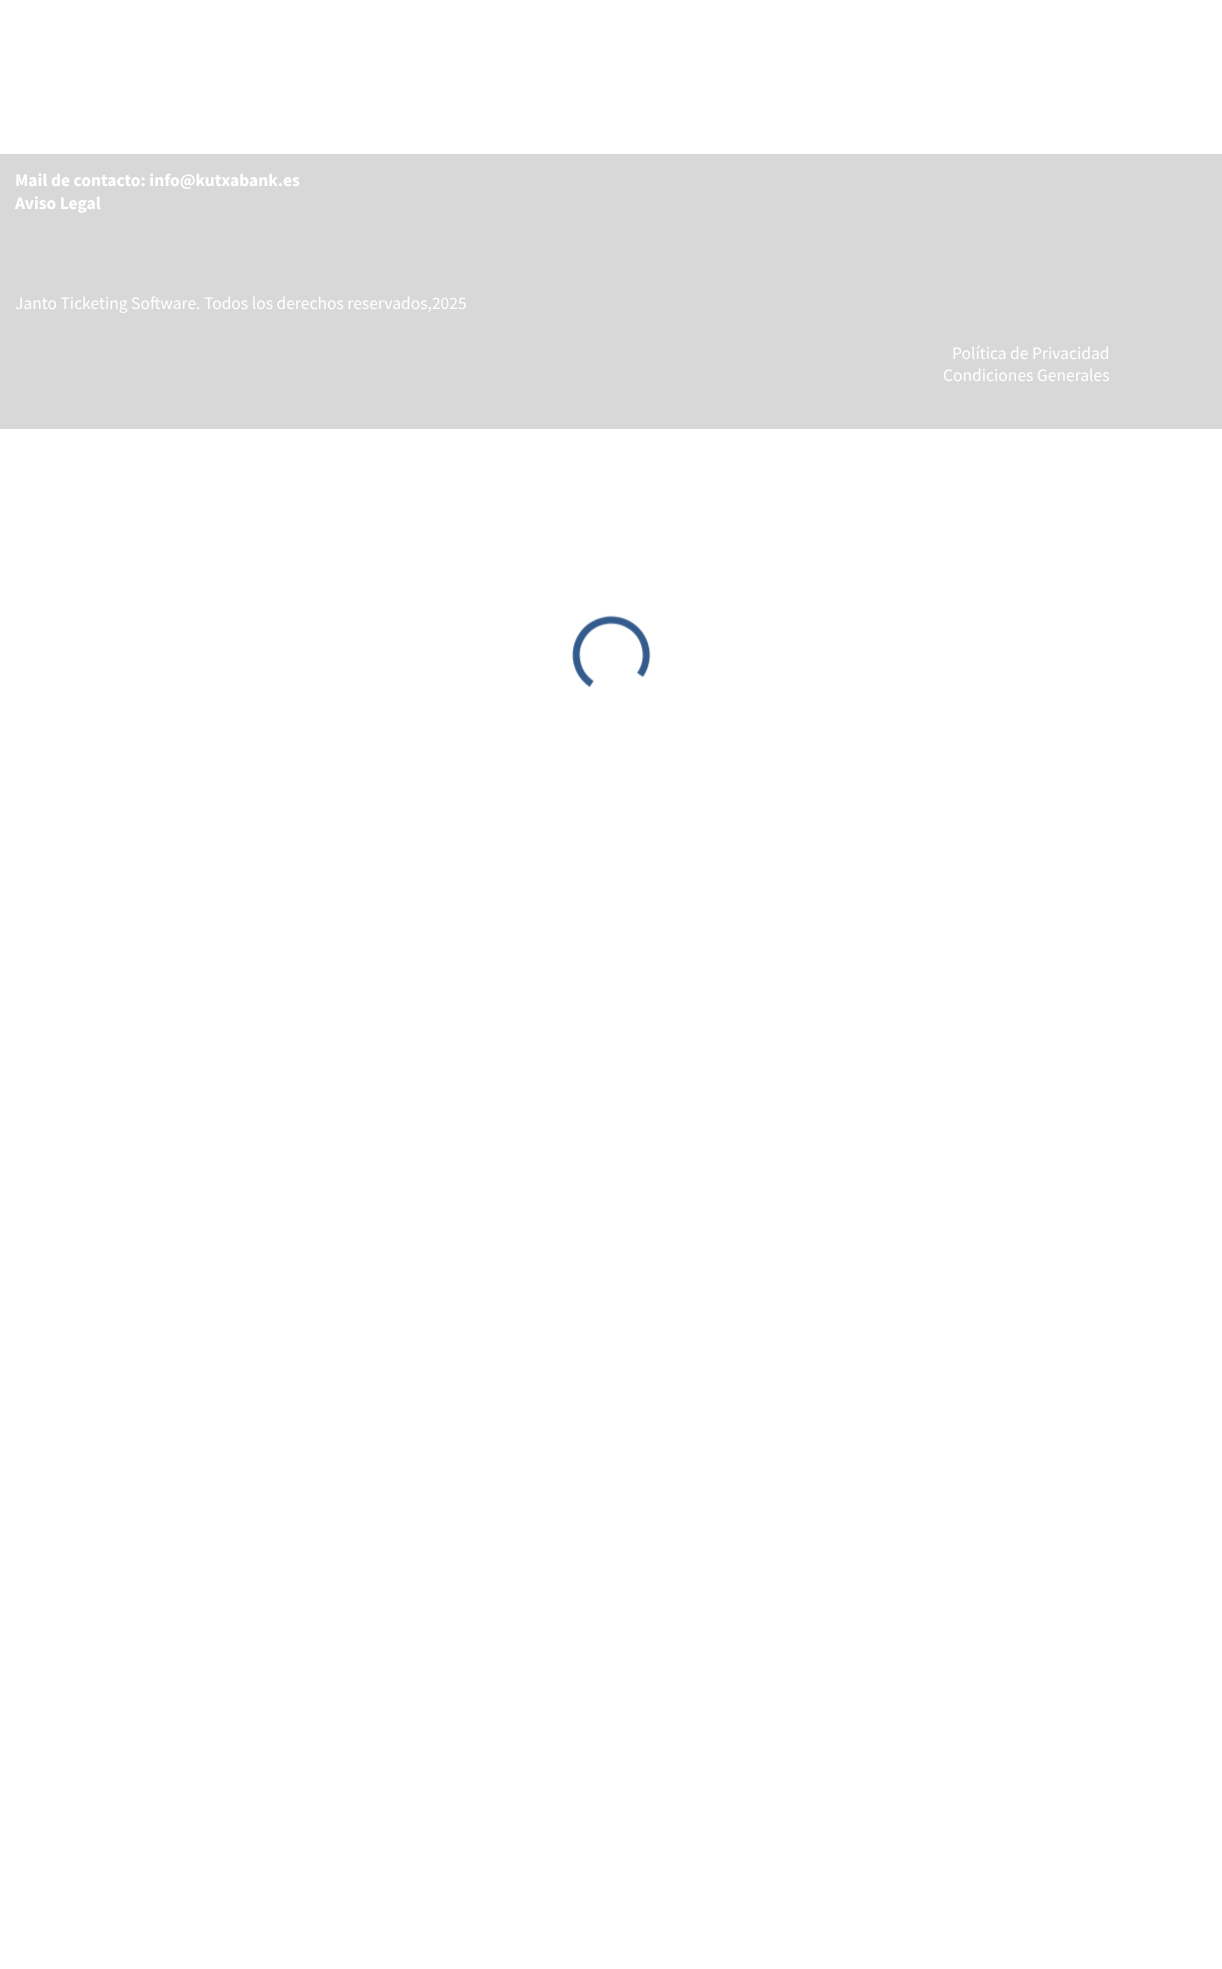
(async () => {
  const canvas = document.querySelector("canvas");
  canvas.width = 1222;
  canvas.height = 1969;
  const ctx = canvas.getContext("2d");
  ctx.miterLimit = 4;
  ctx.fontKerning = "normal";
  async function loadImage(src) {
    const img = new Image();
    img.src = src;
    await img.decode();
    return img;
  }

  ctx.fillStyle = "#ffffff";
  ctx.fillRect(0, 0, 1222, 1969);
  ctx.fillStyle = "#d8d8d8";
  ctx.fillRect(0, 154, 1222, 275);
  ctx.drawImage(await loadImage("img/1.png"), 572, 615, 79, 73);
  ctx.font = "bold 17.5px Source Sans Pro";
  ctx.fillStyle = "#ffffff";
  ctx.fillText("Mail de contacto: info@kutxabank.es", 15, 186);
  ctx.fillText("Aviso Legal", 15, 209);
  ctx.font = "17.5px Source Sans Pro";
  for (const [text, x, y] of [
    ["Janto Ticketing Software. Todos los derechos reservados,2025", 15, 309],
    ["Política de Privacidad", 952, 359],
    ["Condiciones Generales", 943, 381],
  ]) {
    ctx.fillText(text, x, y);
  }
})();
